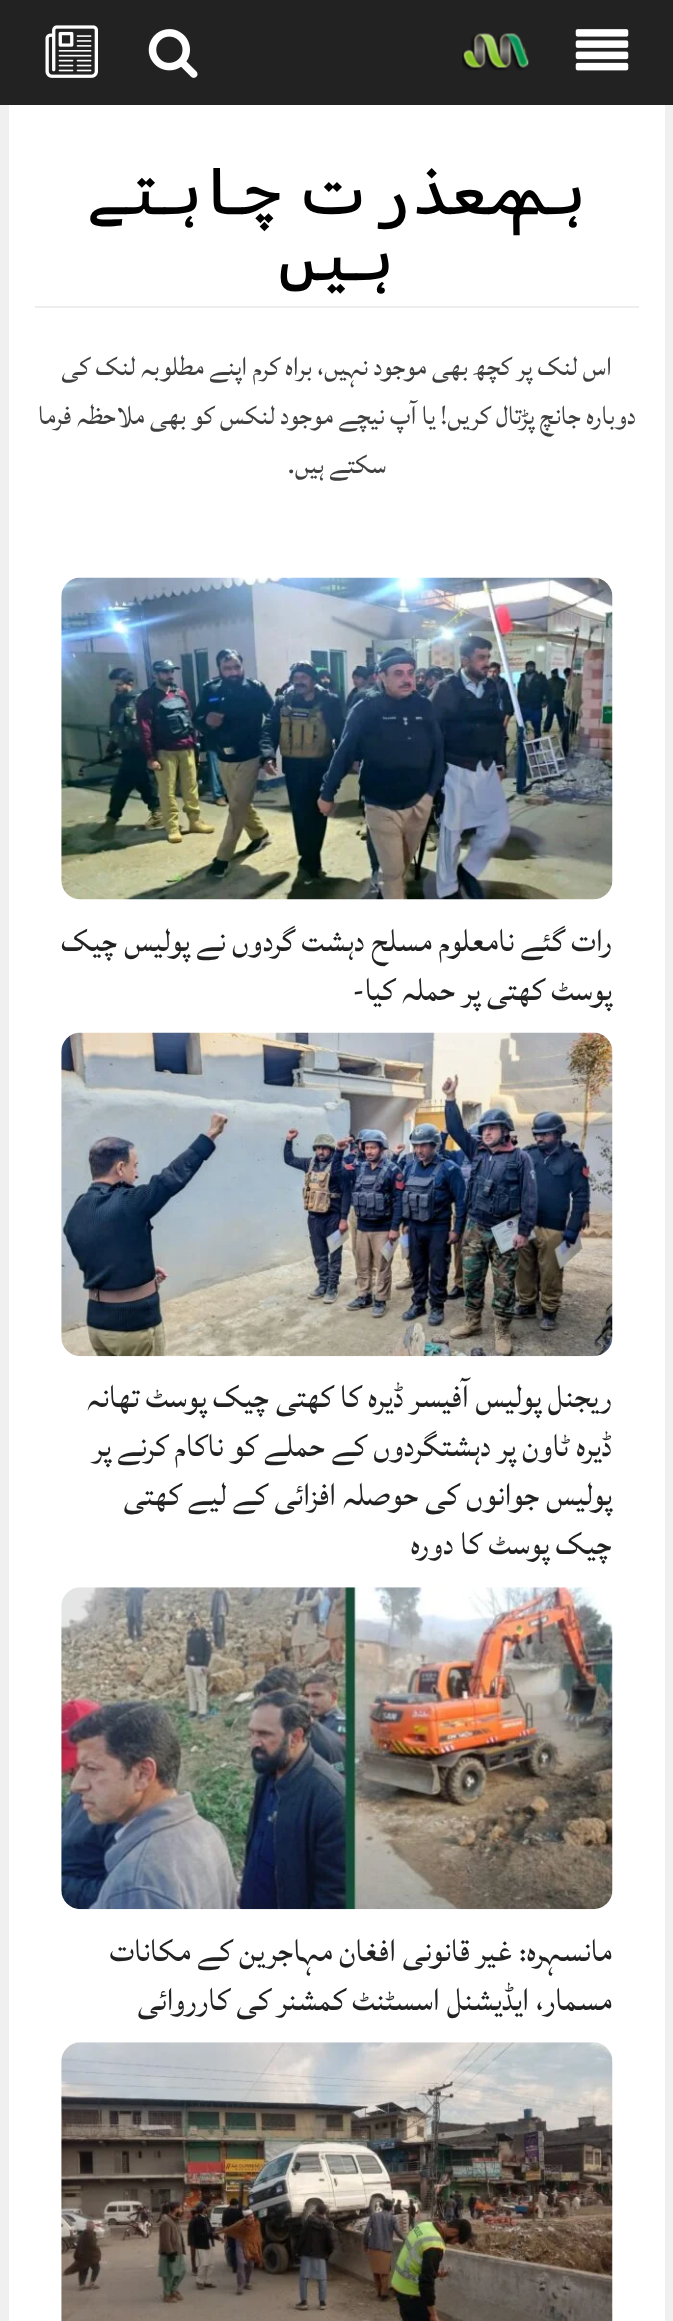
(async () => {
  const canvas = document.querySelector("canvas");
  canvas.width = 673;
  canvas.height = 2321;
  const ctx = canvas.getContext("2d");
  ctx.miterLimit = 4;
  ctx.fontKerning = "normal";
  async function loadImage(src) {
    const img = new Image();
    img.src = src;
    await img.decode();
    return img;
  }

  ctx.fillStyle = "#ffffff";
  ctx.fillRect(0, 0, 673, 2321);
  for (const [x, y, w, h, color] of [
    [665, 105, 8, 2216, "#f0f0f0"],
    [0, 105, 9, 2216, "#f0f0f0"],
    [0, 0, 673, 105, "#222222"],
  ]) {
    ctx.fillStyle = color;
    ctx.fillRect(x, y, w, h);
  }
  ctx.drawImage(await loadImage("img/1.png"), 575, 29, 54, 42);
  ctx.drawImage(await loadImage("img/2.png"), 462, 33, 67, 38);
  ctx.drawImage(await loadImage("img/3.png"), 148, 29, 50, 49);
  ctx.drawImage(await loadImage("img/4.png"), 45, 25, 53, 53);
  ctx.fillStyle = "#eeeeee";
  ctx.fillRect(35, 306, 604, 2);
  ctx.drawImage(await loadImage("img/5.png"), 61, 577, 552, 323);
  ctx.drawImage(await loadImage("img/6.png"), 61, 1032, 552, 325);
  ctx.drawImage(await loadImage("img/7.png"), 61, 1587, 552, 323);
  ctx.drawImage(await loadImage("img/8.png"), 61, 2042, 552, 279);
  ctx.direction = "rtl";
  ctx.font = "66.5px Cascadia Code";
  ctx.fillStyle = "#000000";
  ctx.fillText("ہم", 587, 214);
  ctx.wordSpacing = "-26px";
  ctx.fillText("معذرت چاہتے", 528, 214);
  ctx.wordSpacing = "0px";
  ctx.fillText("ہیں", 395, 280);
  ctx.font = "35px Lateef";
  ctx.fillStyle = "#404040";
  for (const [text, x, y] of [
    ["اس لنک پر کچھ بھی موجود نہیں، براہ کرم اپنے مطلوبہ لنک کی", 612, 375],
    ["دوبارہ جانچ پڑتال کریں!", 636, 424],
    ["یا آپ نیچے موجود لنکس کو بھی ملاحظہ فرما", 435, 424],
    ["سکتے ہیں.", 386, 473],
  ]) {
    ctx.fillText(text, x, y);
  }
  ctx.font = "42px Lateef";
  ctx.fillStyle = "#222222";
  for (const [text, x, y] of [
    ["رات گئے نامعلوم مسلح دہشت گردوں نے پولیس چیک", 612, 951],
    ["پوسٹ کھتی پر حملہ کیا-", 612, 1000],
    ["ریجنل پولیس آفیسر ڈیرہ کا کھتی چیک پوسٹ تھانہ", 612, 1407],
    ["ڈیرہ ٹاون پر دہشتگردوں کے حملے کو ناکام کرنے پر", 612, 1456],
    ["پولیس جوانوں کی حوصلہ افزائی کے لیے کھتی", 612, 1505],
    ["چیک پوسٹ کا دورہ", 612, 1554],
    ["مانسہرہ: غیر قانونی افغان مہاجرین کے مکانات", 612, 1961],
    ["مسمار، ایڈیشنل اسسٹنٹ کمشنر کی کارروائی", 612, 2010],
  ]) {
    ctx.fillText(text, x, y);
  }
})();
